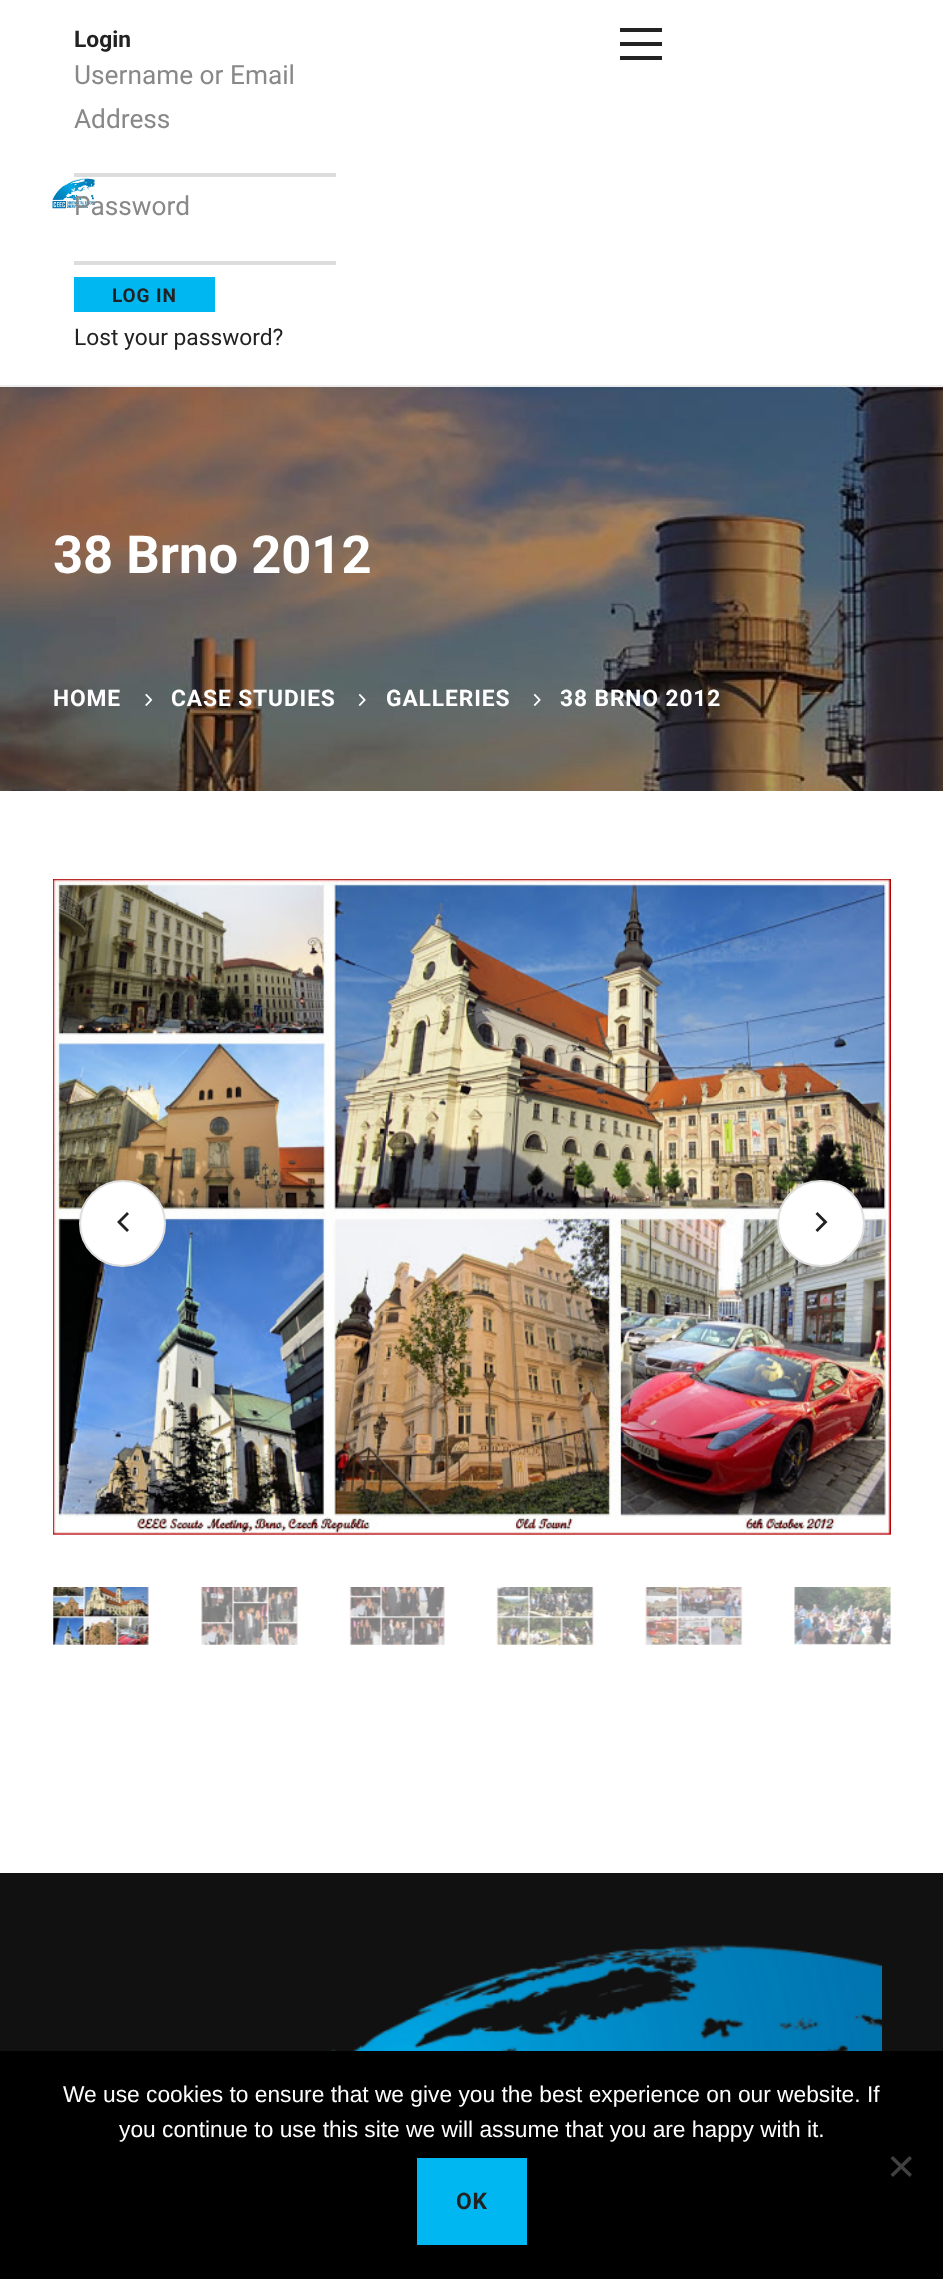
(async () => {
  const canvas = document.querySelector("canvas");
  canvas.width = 943;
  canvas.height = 2279;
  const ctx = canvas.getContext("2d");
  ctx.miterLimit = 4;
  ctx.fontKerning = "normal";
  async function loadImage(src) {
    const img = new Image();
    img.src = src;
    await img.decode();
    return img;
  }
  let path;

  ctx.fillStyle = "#ffffff";
  ctx.fillRect(0, 0, 943, 2279);
  for (const [x, y, w, h, color] of [
    [0, 385, 943, 2, "#eeeeee"],
    [74, 173, 262, 4, "#dddddd"],
    [74, 261, 262, 4, "#dddddd"],
    [74, 277, 141, 35, "#00b7f1"],
    [620, 42, 42, 4, "#222222"],
    [620, 28, 42, 4, "#222222"],
    [620, 56, 42, 4, "#222222"],
  ]) {
    ctx.fillStyle = color;
    ctx.fillRect(x, y, w, h);
  }
  ctx.drawImage(await loadImage("img/1.png"), 52, 178, 43, 31);
  ctx.drawImage(await loadImage("img/2.png"), 0, 387, 943, 404);
  ctx.drawImage(await loadImage("img/3.png"), 145, 693, 8, 13);
  ctx.drawImage(await loadImage("img/4.png"), 358, 693, 8, 13);
  ctx.drawImage(await loadImage("img/5.png"), 533, 693, 8, 13);
  ctx.drawImage(await loadImage("img/6.png"), 53, 879, 838, 656);
  ctx.fillStyle = "#ffffff";
  ctx.beginPath();
  ctx.arc(122.5, 1223.5, 42.5, 0, Math.PI * 2);
  ctx.fill();
  ctx.strokeStyle = "#dddddd";
  ctx.lineWidth = 2;
  ctx.stroke();
  ctx.fillStyle = "#222222";
  path = new Path2D("M129 1214L121 1222L129 1230L127 1232L117 1222L127 1212Z");
  ctx.fill(path);
  ctx.fillStyle = "#ffffff";
  ctx.beginPath();
  ctx.roundRect(778, 1181, 86, 85, 42.5);
  ctx.fill();
  ctx.stroke();
  ctx.fillStyle = "#222222";
  path = new Path2D("M815.5 1214L817.5 1212L827.5 1222L817.5 1232L815.5 1230L823.5 1222Z");
  ctx.fill(path);
  ctx.drawImage(await loadImage("img/7.png"), 53, 1587, 96, 58);
  ctx.drawImage(await loadImage("img/8.png"), 201, 1587, 97, 58);
  ctx.drawImage(await loadImage("img/9.png"), 349, 1587, 96, 58);
  ctx.drawImage(await loadImage("img/10.png"), 496, 1587, 98, 58);
  ctx.drawImage(await loadImage("img/11.png"), 645, 1587, 98, 58);
  ctx.drawImage(await loadImage("img/12.png"), 794, 1587, 97, 58);
  ctx.fillStyle = "#111111";
  ctx.fillRect(0, 1873, 943, 178);
  ctx.drawImage(await loadImage("img/13.png"), 330, 1944, 552, 107);
  ctx.fillStyle = "#000000";
  ctx.fillRect(0, 2051, 943, 228);
  ctx.fillStyle = "#404040";
  path = new Path2D("M909.5 2156L912 2158.5L893 2177L890.5 2174.5Z");
  ctx.fill(path);
  path = new Path2D("M890.5 2158.5L893 2156L912 2174.5L909.5 2177Z");
  ctx.fill(path);
  ctx.fillStyle = "#00b7f1";
  ctx.fillRect(417, 2158, 110, 87);
  ctx.font = "bold 22.75px Roboto";
  ctx.fillStyle = "#222222";
  ctx.fillText("Login", 74, 47);
  ctx.font = "26.25px Roboto";
  ctx.fillStyle = "#888888";
  for (const [text, x, y] of [
    ["Username or Email", 74, 84],
    ["Address", 74, 128],
    ["Password", 74, 215],
  ]) {
    ctx.fillText(text, x, y);
  }
  ctx.letterSpacing = "0.9px";
  ctx.font = "bold 19px Roboto";
  ctx.fillStyle = "#222222";
  ctx.fillText("LOG IN", 112, 302);
  ctx.letterSpacing = "0px";
  ctx.font = "22.75px Roboto";
  ctx.fillText("Lost your password?", 74, 345);
  ctx.font = "bold 52.5px Roboto";
  ctx.fillStyle = "#ffffff";
  ctx.fillText("38 Brno 2012", 53, 573);
  ctx.letterSpacing = "0.9px";
  ctx.font = "bold 22.75px Roboto";
  for (const [text, x, y] of [
    ["HOME", 53, 706],
    ["CASE STUDIES", 171, 706],
    ["GALLERIES", 386, 706],
    ["38 BRNO 2012", 560, 706],
  ]) {
    ctx.fillText(text, x, y);
  }
  ctx.letterSpacing = "0px";
  ctx.font = "22.75px Liberation Sans";
  ctx.fillText("We use cookies to ensure that we give you the best experience on our website. If", 63, 2102);
  ctx.fillText("you continue to use this site we will assume that you are happy with it.", 119, 2137);
  ctx.letterSpacing = "0.9px";
  ctx.font = "bold 22.75px Roboto";
  ctx.fillStyle = "#222222";
  ctx.fillText("OK", 456, 2209);
})();
